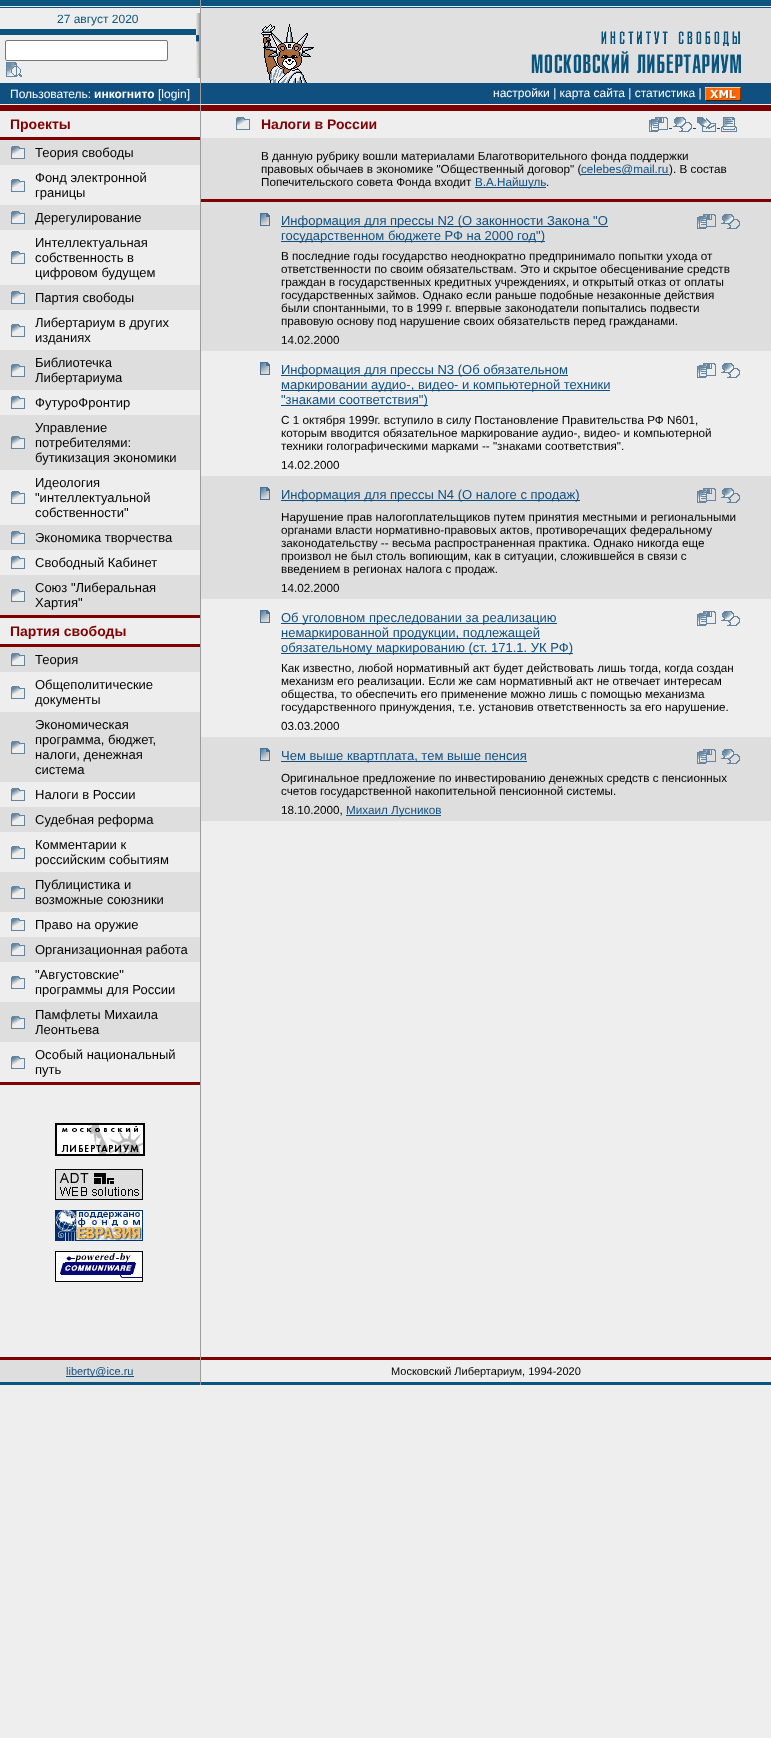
(async () => {
  const canvas = document.querySelector("canvas");
  canvas.width = 771;
  canvas.height = 1738;
  const ctx = canvas.getContext("2d");
  ctx.miterLimit = 4;
  ctx.fontKerning = "normal";
  async function loadImage(src) {
    const img = new Image();
    img.src = src;
    await img.decode();
    return img;
  }

  ctx.fillStyle = "#eeeeee";
  ctx.fillRect(0, 0, 771, 1738);
  ctx.drawImage(await loadImage("img/1.png"), 0, 0, 200, 8);
  ctx.fillStyle = "#9b9b9b";
  ctx.fillRect(200, 0, 1, 83);
  ctx.drawImage(await loadImage("img/2.png"), 201, 0, 570, 8);
  ctx.drawImage(await loadImage("img/3.png"), 196, 13, 4, 65);
  ctx.fillStyle = "#0a537c";
  ctx.fillRect(0, 29, 196, 6);
  ctx.fillStyle = "#ffffff";
  ctx.beginPath();
  ctx.roundRect(5.5, 40.5, 162, 20, 1.5);
  ctx.fill();
  ctx.strokeStyle = "#767676";
  ctx.stroke();
  ctx.drawImage(await loadImage("img/4.png"), 6, 62, 16, 15);
  ctx.fillStyle = "#e0e0e0";
  ctx.fillRect(201, 8, 570, 75);
  ctx.drawImage(await loadImage("img/5.png"), 261, 24, 53, 59);
  ctx.drawImage(await loadImage("img/6.png"), 531, 31, 210, 42);
  ctx.fillStyle = "#105080";
  ctx.fillRect(0, 83, 771, 21);
  ctx.fillStyle = "#9b9b9b";
  ctx.fillRect(200, 83, 1, 21);
  ctx.drawImage(await loadImage("img/7.png"), 705, 87, 36, 14);
  for (const [x, y, w, h, color] of [
    [0, 105, 771, 3, "#7e0001"],
    [200, 105, 1, 1280, "#9b9b9b"],
    [0, 108, 200, 3, "#7e0001"],
    [0, 137, 200, 3, "#7e0001"],
    [0, 140, 200, 25, "#dedede"],
  ]) {
    ctx.fillStyle = color;
    ctx.fillRect(x, y, w, h);
  }
  ctx.drawImage(await loadImage("img/8.png"), 11, 146, 14, 13);
  ctx.drawImage(await loadImage("img/9.png"), 11, 179, 14, 13);
  ctx.fillRect(0, 205, 200, 25);
  ctx.drawImage(await loadImage("img/8.png"), 11, 211, 14, 13);
  ctx.drawImage(await loadImage("img/9.png"), 11, 251, 14, 13);
  ctx.fillRect(0, 285, 200, 25);
  ctx.drawImage(await loadImage("img/8.png"), 11, 291, 14, 13);
  ctx.drawImage(await loadImage("img/9.png"), 11, 324, 14, 13);
  ctx.fillRect(0, 350, 200, 40);
  ctx.drawImage(await loadImage("img/8.png"), 11, 364, 14, 13);
  ctx.drawImage(await loadImage("img/9.png"), 11, 396, 14, 13);
  ctx.fillRect(0, 415, 200, 55);
  ctx.drawImage(await loadImage("img/8.png"), 11, 436, 14, 13);
  ctx.drawImage(await loadImage("img/9.png"), 11, 491, 14, 13);
  ctx.fillRect(0, 525, 200, 25);
  ctx.drawImage(await loadImage("img/8.png"), 11, 531, 14, 13);
  ctx.drawImage(await loadImage("img/9.png"), 11, 556, 14, 13);
  ctx.fillRect(0, 575, 200, 40);
  ctx.drawImage(await loadImage("img/8.png"), 11, 589, 14, 13);
  for (const [x, y, w, h, color] of [
    [0, 615, 200, 3, "#7e0001"],
    [0, 644, 200, 3, "#7e0001"],
    [0, 647, 200, 25, "#dedede"],
  ]) {
    ctx.fillStyle = color;
    ctx.fillRect(x, y, w, h);
  }
  ctx.drawImage(await loadImage("img/8.png"), 11, 653, 14, 13);
  ctx.drawImage(await loadImage("img/9.png"), 11, 686, 14, 13);
  ctx.fillRect(0, 712, 200, 70);
  ctx.drawImage(await loadImage("img/8.png"), 11, 741, 14, 13);
  ctx.drawImage(await loadImage("img/9.png"), 11, 788, 14, 13);
  ctx.fillRect(0, 807, 200, 25);
  ctx.drawImage(await loadImage("img/8.png"), 11, 813, 14, 13);
  ctx.drawImage(await loadImage("img/9.png"), 11, 846, 14, 13);
  ctx.fillRect(0, 872, 200, 40);
  ctx.drawImage(await loadImage("img/8.png"), 11, 886, 14, 13);
  ctx.drawImage(await loadImage("img/9.png"), 11, 918, 14, 13);
  ctx.fillRect(0, 937, 200, 25);
  ctx.drawImage(await loadImage("img/8.png"), 11, 943, 14, 13);
  ctx.drawImage(await loadImage("img/9.png"), 11, 976, 14, 13);
  ctx.fillRect(0, 1002, 200, 40);
  ctx.drawImage(await loadImage("img/8.png"), 11, 1016, 14, 13);
  ctx.drawImage(await loadImage("img/9.png"), 11, 1056, 14, 13);
  ctx.fillStyle = "#7e0001";
  ctx.fillRect(0, 1082, 200, 3);
  ctx.strokeStyle = "#000000";
  ctx.strokeRect(55.5, 1123.5, 89, 32);
  ctx.drawImage(await loadImage("img/10.png"), 56, 1124, 88, 31);
  ctx.drawImage(await loadImage("img/11.png"), 55, 1169, 88, 31);
  ctx.drawImage(await loadImage("img/12.png"), 55, 1210, 88, 31);
  ctx.drawImage(await loadImage("img/13.png"), 55, 1251, 88, 31);
  ctx.drawImage(await loadImage("img/9.png"), 236, 117, 14, 13);
  ctx.fillRect(201, 108, 570, 3);
  ctx.drawImage(await loadImage("img/14.png"), 649, 117, 19, 15);
  ctx.fillStyle = "#105080";
  ctx.fillRect(669, 128, 3, 1);
  ctx.drawImage(await loadImage("img/15.png"), 673, 117, 19, 15);
  ctx.fillRect(693, 128, 3, 1);
  ctx.drawImage(await loadImage("img/16.png"), 697, 117, 19, 15);
  ctx.fillRect(717, 128, 3, 1);
  ctx.drawImage(await loadImage("img/17.png"), 721, 117, 16, 15);
  for (const [x, y, w, h, color] of [
    [201, 138, 570, 61, "#dedede"],
    [475, 187, 71, 1, "#105080"],
    [201, 199, 570, 3, "#7e0001"],
    [201, 202, 570, 149, "#dedede"],
  ]) {
    ctx.fillStyle = color;
    ctx.fillRect(x, y, w, h);
  }
  ctx.drawImage(await loadImage("img/18.png"), 260, 213, 10, 13);
  ctx.fillStyle = "#105080";
  ctx.fillRect(281, 226, 327, 1);
  ctx.fillRect(281, 241, 264, 1);
  ctx.drawImage(await loadImage("img/19.png"), 697, 214, 19, 15);
  ctx.drawImage(await loadImage("img/20.png"), 721, 214, 19, 15);
  ctx.drawImage(await loadImage("img/21.png"), 260, 362, 10, 13);
  for (const [x, y, w, h, color] of [
    [281, 375, 287, 1, "#105080"],
    [281, 390, 329, 1, "#105080"],
    [281, 405, 147, 1, "#105080"],
  ]) {
    ctx.fillStyle = color;
    ctx.fillRect(x, y, w, h);
  }
  ctx.drawImage(await loadImage("img/14.png"), 697, 363, 19, 15);
  ctx.drawImage(await loadImage("img/15.png"), 721, 363, 19, 15);
  ctx.fillStyle = "#dedede";
  ctx.fillRect(201, 476, 570, 123);
  ctx.drawImage(await loadImage("img/18.png"), 260, 487, 10, 13);
  ctx.fillStyle = "#105080";
  ctx.fillRect(281, 500, 299, 1);
  ctx.drawImage(await loadImage("img/19.png"), 697, 488, 19, 15);
  ctx.drawImage(await loadImage("img/20.png"), 721, 488, 19, 15);
  ctx.drawImage(await loadImage("img/21.png"), 260, 610, 10, 13);
  for (const [x, y, w, h, color] of [
    [281, 623, 276, 1, "#105080"],
    [281, 638, 259, 1, "#105080"],
    [281, 653, 292, 1, "#105080"],
  ]) {
    ctx.fillStyle = color;
    ctx.fillRect(x, y, w, h);
  }
  ctx.drawImage(await loadImage("img/14.png"), 697, 611, 19, 15);
  ctx.drawImage(await loadImage("img/15.png"), 721, 611, 19, 15);
  ctx.fillStyle = "#dedede";
  ctx.fillRect(201, 737, 570, 84);
  ctx.drawImage(await loadImage("img/18.png"), 260, 748, 10, 13);
  ctx.fillStyle = "#105080";
  ctx.fillRect(281, 761, 246, 1);
  ctx.drawImage(await loadImage("img/19.png"), 697, 749, 19, 15);
  ctx.drawImage(await loadImage("img/20.png"), 721, 749, 19, 15);
  for (const [x, y, w, h, color] of [
    [346, 815, 95, 1, "#105080"],
    [0, 1357, 200, 3, "#7e0001"],
    [201, 1357, 570, 3, "#7e0001"],
    [0, 1360, 200, 22, "#dedede"],
    [66, 1376, 68, 1, "#105080"],
    [0, 1382, 200, 3, "#0a557d"],
    [201, 1382, 570, 3, "#0a557d"],
  ]) {
    ctx.fillStyle = color;
    ctx.fillRect(x, y, w, h);
  }
  ctx.font = "12px Liberation Sans";
  ctx.fillStyle = "#0a537e";
  ctx.fillText("27 август 2020", 57, 23);
  ctx.fillStyle = "#ffffff";
  ctx.fillText("Пользователь:", 10, 98);
  ctx.font = "bold 12px Liberation Sans";
  ctx.fillText("инкогнито", 94, 98);
  ctx.font = "12px Liberation Sans";
  ctx.fillText("[login]", 158, 98);
  ctx.fillText("настройки | карта сайта | статистика |", 493, 97);
  ctx.font = "bold 14px Liberation Sans";
  ctx.fillStyle = "#800003";
  ctx.fillText("Проекты", 10, 129);
  ctx.font = "13px Liberation Sans";
  ctx.fillStyle = "#000000";
  for (const [text, x, y] of [
    ["Теория свободы", 35, 157],
    ["Фонд электронной", 35, 182],
    ["границы", 35, 197],
    ["Дерегулирование", 35, 222],
    ["Интеллектуальная", 35, 247],
    ["собственность в", 35, 262],
    ["цифровом будущем", 35, 277],
    ["Партия свободы", 35, 302],
    ["Либертариум в других", 35, 327],
    ["изданиях", 35, 342],
    ["Библиотечка", 35, 367],
    ["Либертариума", 35, 382],
    ["ФутуроФронтир", 35, 407],
    ["Управление", 35, 432],
    ["потребителями:", 35, 447],
    ["бутикизация экономики", 35, 462],
    ["Идеология", 35, 487],
    ["\"интеллектуальной", 35, 502],
    ["собственности\"", 35, 517],
    ["Экономика творчества", 35, 542],
    ["Свободный Кабинет", 35, 567],
    ["Союз \"Либеральная", 35, 592],
    ["Хартия\"", 35, 607],
  ]) {
    ctx.fillText(text, x, y);
  }
  ctx.font = "bold 14px Liberation Sans";
  ctx.fillStyle = "#800003";
  ctx.fillText("Партия свободы", 10, 636);
  ctx.font = "13px Liberation Sans";
  ctx.fillStyle = "#000000";
  for (const [text, x, y] of [
    ["Теория", 35, 664],
    ["Общеполитические", 35, 689],
    ["документы", 35, 704],
    ["Экономическая", 35, 729],
    ["программа, бюджет,", 35, 744],
    ["налоги, денежная", 35, 759],
    ["система", 35, 774],
    ["Налоги в России", 35, 799],
    ["Судебная реформа", 35, 824],
    ["Комментарии к", 35, 849],
    ["российским событиям", 35, 864],
    ["Публицистика и", 35, 889],
    ["возможные союзники", 35, 904],
    ["Право на оружие", 35, 929],
    ["Организационная работа", 35, 954],
    ["\"Августовские\"", 35, 979],
    ["программы для России", 35, 994],
    ["Памфлеты Михаила", 35, 1019],
    ["Леонтьева", 35, 1034],
    ["Особый национальный", 35, 1059],
    ["путь", 35, 1074],
  ]) {
    ctx.fillText(text, x, y);
  }
  ctx.font = "bold 14px Liberation Sans";
  ctx.fillStyle = "#800003";
  ctx.fillText("Налоги в России", 261, 129);
  ctx.font = "11.7px Liberation Sans";
  ctx.fillStyle = "#000000";
  ctx.fillText("В данную рубрику вошли материалами Благотворительного фонда поддержки", 261, 160);
  ctx.fillText("правовых обычаев в экономике \"Общественный договор\" (", 261, 173);
  ctx.fillStyle = "#105080";
  ctx.fillRect(581, 174, 88, 1);
  ctx.fillText("celebes@mail.ru", 581, 173);
  ctx.fillStyle = "#000000";
  ctx.fillText("). В состав", 669, 173);
  ctx.fillText("Попечительского совета Фонда входит", 261, 186);
  ctx.fillStyle = "#105080";
  ctx.fillText("В.А.Найшуль", 475, 186);
  ctx.fillStyle = "#000000";
  ctx.fillText(".", 546, 186);
  ctx.font = "13px Liberation Sans";
  ctx.fillStyle = "#105080";
  ctx.fillText("Информация для прессы N2 (О законности Закона \"О", 281, 225);
  ctx.fillText("государственном бюджете РФ на 2000 год\")", 281, 240);
  ctx.font = "11.7px Liberation Sans";
  ctx.fillStyle = "#000000";
  for (const [text, x, y] of [
    ["В последние годы государство неоднократно предпринимало попытки ухода от", 281, 260],
    ["ответственности по своим обязательствам. Это и скрытое обесценивание средств", 281, 273],
    ["граждан в государственных кредитных учреждениях, и открытый отказ от оплаты", 281, 286],
    ["государственных займов. Однако если раньше подобные незаконные действия", 281, 299],
    ["были спонтанными, то в 1999 г. впервые законодатели попытались подвести", 281, 312],
    ["правовую основу под нарушение своих обязательств перед гражданами.", 281, 325],
    ["14.02.2000", 281, 344],
  ]) {
    ctx.fillText(text, x, y);
  }
  ctx.font = "13px Liberation Sans";
  ctx.fillStyle = "#105080";
  for (const [text, x, y] of [
    ["Информация для прессы N3 (Об обязательном", 281, 374],
    ["маркировании аудио-, видео- и компьютерной техники", 281, 389],
    ["\"знаками соответствия\")", 281, 404],
  ]) {
    ctx.fillText(text, x, y);
  }
  ctx.font = "11.7px Liberation Sans";
  ctx.fillStyle = "#000000";
  for (const [text, x, y] of [
    ["С 1 октября 1999г. вступило в силу Постановление Правительства РФ N601,", 281, 424],
    ["которым вводится обязательное маркирование аудио-, видео- и компьютерной", 281, 437],
    ["техники голографическими марками -- \"знаками соответствия\".", 281, 450],
    ["14.02.2000", 281, 469],
  ]) {
    ctx.fillText(text, x, y);
  }
  ctx.font = "13px Liberation Sans";
  ctx.fillStyle = "#105080";
  ctx.fillText("Информация для прессы N4 (О налоге с продаж)", 281, 499);
  ctx.font = "11.7px Liberation Sans";
  ctx.fillStyle = "#000000";
  for (const [text, x, y] of [
    ["Нарушение прав налогоплательщиков путем принятия местными и региональными", 281, 521],
    ["органами власти нормативно-правовых актов, противоречащих федеральному", 281, 534],
    ["законодательству -- весьма распространенная практика. Однако никогда еще", 281, 547],
    ["произвол не был столь вопиющим, как в ситуации, сложившейся в связи с", 281, 560],
    ["введением в регионах налога с продаж.", 281, 573],
    ["14.02.2000", 281, 592],
  ]) {
    ctx.fillText(text, x, y);
  }
  ctx.font = "13px Liberation Sans";
  ctx.fillStyle = "#105080";
  for (const [text, x, y] of [
    ["Об уголовном преследовании за реализацию", 281, 622],
    ["немаркированной продукции, подлежащей", 281, 637],
    ["обязательному маркированию (ст. 171.1. УК РФ)", 281, 652],
  ]) {
    ctx.fillText(text, x, y);
  }
  ctx.font = "11.7px Liberation Sans";
  ctx.fillStyle = "#000000";
  for (const [text, x, y] of [
    ["Как известно, любой нормативный акт будет действовать лишь тогда, когда создан", 281, 672],
    ["механизм его реализации. Если же сам нормативный акт не отвечает интересам", 281, 685],
    ["общества, то обеспечить его применение можно лишь с помощью механизма", 281, 698],
    ["государственного принуждения, т.е. установив ответственность за его нарушение.", 281, 711],
    ["03.03.2000", 281, 730],
  ]) {
    ctx.fillText(text, x, y);
  }
  ctx.font = "13px Liberation Sans";
  ctx.fillStyle = "#105080";
  ctx.fillText("Чем выше квартплата, тем выше пенсия", 281, 760);
  ctx.font = "11.7px Liberation Sans";
  ctx.fillStyle = "#000000";
  for (const [text, x, y] of [
    ["Оригинальное предложение по инвестированию денежных средств с пенсионных", 281, 782],
    ["счетов государственной накопительной пенсионной системы.", 281, 795],
    ["18.10.2000,", 281, 814],
  ]) {
    ctx.fillText(text, x, y);
  }
  ctx.fillStyle = "#105080";
  ctx.fillText("Михаил Лусников", 346, 814);
  ctx.font = "11px Liberation Sans";
  ctx.fillText("liberty@ice.ru", 66, 1375);
  ctx.fillStyle = "#000000";
  ctx.fillText("Московский Либертариум, 1994-2020", 391, 1375);
})();
